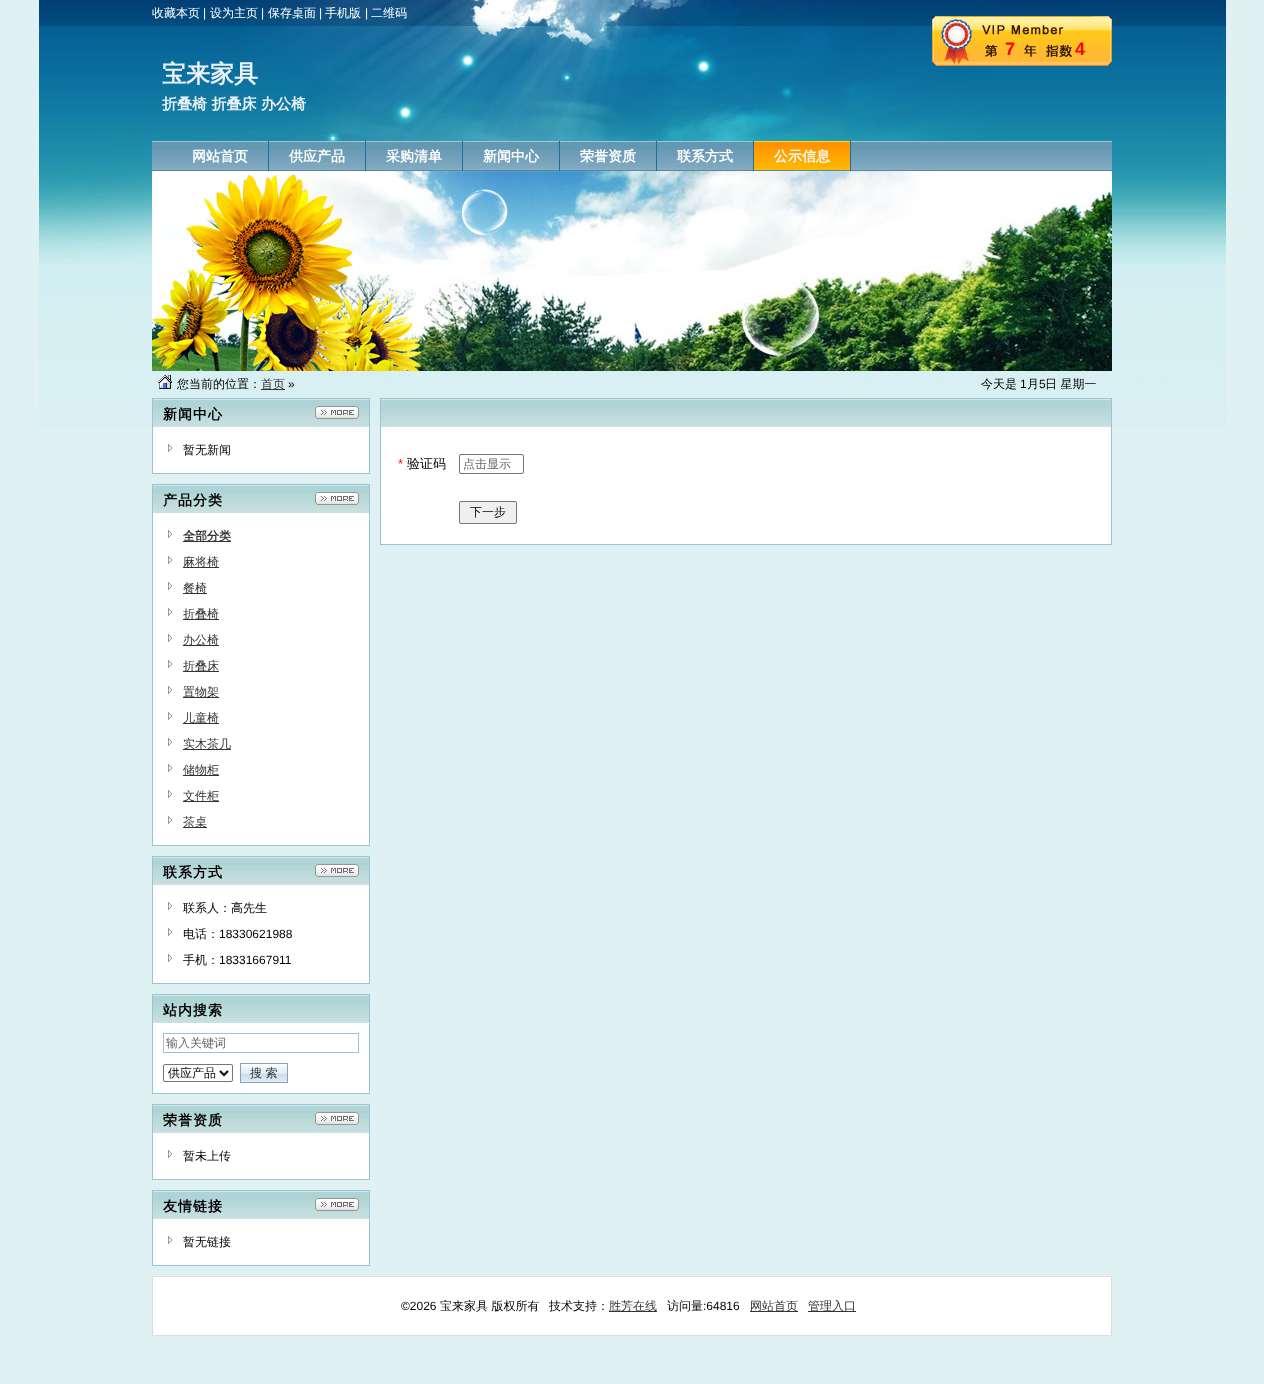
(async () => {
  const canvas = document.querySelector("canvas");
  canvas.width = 1264;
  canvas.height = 1384;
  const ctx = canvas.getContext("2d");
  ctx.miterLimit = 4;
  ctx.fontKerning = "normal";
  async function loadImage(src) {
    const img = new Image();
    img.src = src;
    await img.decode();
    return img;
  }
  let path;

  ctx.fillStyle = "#dff1f2";
  ctx.fillRect(0, 0, 1264, 1384);
  ctx.drawImage(await loadImage("img/1.png"), 39, 0, 1187, 426);
  ctx.drawImage(await loadImage("img/2.png"), 932, 16, 180, 50);
  ctx.drawImage(await loadImage("img/3.png"), 152, 141, 960, 30);
  for (const [x, y, w, h, color] of [
    [268, 141, 1, 30, "#197197"],
    [365, 141, 1, 30, "#197197"],
    [462, 141, 1, 30, "#197197"],
    [559, 141, 1, 30, "#197197"],
    [656, 141, 1, 30, "#197197"],
    [753, 141, 1, 30, "#197197"],
  ]) {
    ctx.fillStyle = color;
    ctx.fillRect(x, y, w, h);
  }
  ctx.drawImage(await loadImage("img/4.png"), 754, 141, 96, 29);
  ctx.fillRect(850, 141, 1, 30);
  ctx.drawImage(await loadImage("img/5.png"), 152, 171, 960, 200);
  ctx.drawImage(await loadImage("img/6.png"), 158, 375, 14, 14);
  ctx.fillStyle = "#333333";
  ctx.fillRect(261, 389, 24, 1);
  ctx.drawImage(await loadImage("img/7.png"), 153, 399, 216, 28);
  for (const [x, y, w, h, color] of [
    [152, 398, 218, 1, "#99c4d5"],
    [369, 398, 1, 76, "#99c4d5"],
    [152, 398, 1, 29, "#99c4d5"],
  ]) {
    ctx.fillStyle = color;
    ctx.fillRect(x, y, w, h);
  }
  ctx.drawImage(await loadImage("img/8.png"), 315, 406, 44, 13);
  for (const [x, y, w, h, color] of [
    [153, 427, 216, 46, "#ffffff"],
    [152, 473, 218, 1, "#99c4d5"],
    [152, 427, 1, 47, "#99c4d5"],
  ]) {
    ctx.fillStyle = color;
    ctx.fillRect(x, y, w, h);
  }
  ctx.drawImage(await loadImage("img/9.png"), 168, 444, 4, 8);
  ctx.drawImage(await loadImage("img/7.png"), 153, 485, 216, 28);
  for (const [x, y, w, h, color] of [
    [152, 484, 218, 1, "#99c4d5"],
    [369, 484, 1, 362, "#99c4d5"],
    [152, 484, 1, 29, "#99c4d5"],
  ]) {
    ctx.fillStyle = color;
    ctx.fillRect(x, y, w, h);
  }
  ctx.drawImage(await loadImage("img/8.png"), 315, 492, 44, 13);
  for (const [x, y, w, h, color] of [
    [153, 513, 216, 332, "#ffffff"],
    [152, 845, 218, 1, "#99c4d5"],
    [152, 513, 1, 333, "#99c4d5"],
  ]) {
    ctx.fillStyle = color;
    ctx.fillRect(x, y, w, h);
  }
  ctx.drawImage(await loadImage("img/9.png"), 168, 530, 4, 8);
  ctx.fillStyle = "#333333";
  ctx.fillRect(183, 541, 48, 1);
  ctx.drawImage(await loadImage("img/9.png"), 168, 556, 4, 8);
  ctx.fillRect(183, 567, 36, 1);
  ctx.drawImage(await loadImage("img/9.png"), 168, 582, 4, 8);
  ctx.fillRect(183, 593, 24, 1);
  ctx.drawImage(await loadImage("img/9.png"), 168, 608, 4, 8);
  ctx.fillRect(183, 619, 36, 1);
  ctx.drawImage(await loadImage("img/9.png"), 168, 634, 4, 8);
  ctx.fillRect(183, 645, 36, 1);
  ctx.drawImage(await loadImage("img/9.png"), 168, 660, 4, 8);
  ctx.fillRect(183, 671, 36, 1);
  ctx.drawImage(await loadImage("img/9.png"), 168, 686, 4, 8);
  ctx.fillRect(183, 697, 36, 1);
  ctx.drawImage(await loadImage("img/9.png"), 168, 712, 4, 8);
  ctx.fillRect(183, 723, 36, 1);
  ctx.drawImage(await loadImage("img/9.png"), 168, 738, 4, 8);
  ctx.fillRect(183, 749, 48, 1);
  ctx.drawImage(await loadImage("img/9.png"), 168, 764, 4, 8);
  ctx.fillRect(183, 775, 36, 1);
  ctx.drawImage(await loadImage("img/9.png"), 168, 790, 4, 8);
  ctx.fillRect(183, 801, 36, 1);
  ctx.drawImage(await loadImage("img/9.png"), 168, 816, 4, 8);
  ctx.fillRect(183, 827, 24, 1);
  ctx.drawImage(await loadImage("img/7.png"), 153, 857, 216, 28);
  for (const [x, y, w, h, color] of [
    [152, 856, 218, 1, "#99c4d5"],
    [369, 856, 1, 128, "#99c4d5"],
    [152, 856, 1, 29, "#99c4d5"],
  ]) {
    ctx.fillStyle = color;
    ctx.fillRect(x, y, w, h);
  }
  ctx.drawImage(await loadImage("img/8.png"), 315, 864, 44, 13);
  for (const [x, y, w, h, color] of [
    [153, 885, 216, 98, "#ffffff"],
    [152, 983, 218, 1, "#99c4d5"],
    [152, 885, 1, 99, "#99c4d5"],
  ]) {
    ctx.fillStyle = color;
    ctx.fillRect(x, y, w, h);
  }
  ctx.drawImage(await loadImage("img/9.png"), 168, 902, 4, 8);
  ctx.drawImage(await loadImage("img/9.png"), 168, 928, 4, 8);
  ctx.drawImage(await loadImage("img/9.png"), 168, 954, 4, 8);
  ctx.drawImage(await loadImage("img/7.png"), 153, 995, 216, 28);
  for (const [x, y, w, h, color] of [
    [152, 994, 218, 1, "#99c4d5"],
    [369, 994, 1, 100, "#99c4d5"],
    [152, 994, 1, 29, "#99c4d5"],
    [153, 1023, 216, 70, "#ffffff"],
    [152, 1093, 218, 1, "#99c4d5"],
    [152, 1023, 1, 71, "#99c4d5"],
  ]) {
    ctx.fillStyle = color;
    ctx.fillRect(x, y, w, h);
  }
  ctx.strokeStyle = "#99c4d5";
  ctx.strokeRect(163.5, 1033.5, 195, 19);
  ctx.beginPath();
  ctx.roundRect(163.5, 1064.5, 69, 17, 1.5);
  ctx.strokeStyle = "#767676";
  ctx.stroke();
  path = new Path2D("M220 1071L224 1075L228 1071");
  ctx.strokeStyle = "#000000";
  ctx.lineWidth = 2;
  ctx.stroke(path);
  ctx.drawImage(await loadImage("img/10.png"), 241, 1065, 46, 17);
  ctx.strokeStyle = "#86a2c0";
  ctx.lineWidth = 1;
  ctx.strokeRect(240.5, 1063.5, 47, 19);
  ctx.drawImage(await loadImage("img/7.png"), 153, 1105, 216, 28);
  for (const [x, y, w, h, color] of [
    [152, 1104, 218, 1, "#99c4d5"],
    [369, 1104, 1, 76, "#99c4d5"],
    [152, 1104, 1, 29, "#99c4d5"],
  ]) {
    ctx.fillStyle = color;
    ctx.fillRect(x, y, w, h);
  }
  ctx.drawImage(await loadImage("img/8.png"), 315, 1112, 44, 13);
  for (const [x, y, w, h, color] of [
    [153, 1133, 216, 46, "#ffffff"],
    [152, 1179, 218, 1, "#99c4d5"],
    [152, 1133, 1, 47, "#99c4d5"],
  ]) {
    ctx.fillStyle = color;
    ctx.fillRect(x, y, w, h);
  }
  ctx.drawImage(await loadImage("img/9.png"), 168, 1150, 4, 8);
  ctx.drawImage(await loadImage("img/7.png"), 153, 1191, 216, 28);
  for (const [x, y, w, h, color] of [
    [152, 1190, 218, 1, "#99c4d5"],
    [369, 1190, 1, 76, "#99c4d5"],
    [152, 1190, 1, 29, "#99c4d5"],
  ]) {
    ctx.fillStyle = color;
    ctx.fillRect(x, y, w, h);
  }
  ctx.drawImage(await loadImage("img/8.png"), 315, 1198, 44, 13);
  for (const [x, y, w, h, color] of [
    [153, 1219, 216, 46, "#ffffff"],
    [152, 1265, 218, 1, "#99c4d5"],
    [152, 1219, 1, 47, "#99c4d5"],
  ]) {
    ctx.fillStyle = color;
    ctx.fillRect(x, y, w, h);
  }
  ctx.drawImage(await loadImage("img/9.png"), 168, 1236, 4, 8);
  ctx.drawImage(await loadImage("img/11.png"), 381, 399, 730, 28);
  for (const [x, y, w, h, color] of [
    [380, 398, 732, 1, "#99c4d5"],
    [1111, 398, 1, 147, "#99c4d5"],
    [380, 398, 1, 29, "#99c4d5"],
    [381, 427, 730, 117, "#ffffff"],
    [380, 544, 732, 1, "#99c4d5"],
    [380, 427, 1, 118, "#99c4d5"],
  ]) {
    ctx.fillStyle = color;
    ctx.fillRect(x, y, w, h);
  }
  ctx.beginPath();
  ctx.roundRect(459.5, 454.5, 64, 19, 1.5);
  ctx.strokeStyle = "#767676";
  ctx.stroke();
  ctx.fillStyle = "#efefef";
  ctx.beginPath();
  ctx.roundRect(459.5, 501.5, 57, 22, 1.5);
  ctx.fill();
  ctx.stroke();
  ctx.fillStyle = "#ffffff";
  ctx.beginPath();
  ctx.rect(152.5, 1276.5, 959, 59);
  ctx.fill();
  ctx.strokeStyle = "#dddddd";
  ctx.stroke();
  for (const [x, y, w, h, color] of [
    [609, 1311, 48, 1, "#333333"],
    [750, 1311, 48, 1, "#333333"],
    [808, 1311, 48, 1, "#333333"],
  ]) {
    ctx.fillStyle = color;
    ctx.fillRect(x, y, w, h);
  }
  ctx.font = "500 12px WenQuanYi Zen Hei";
  ctx.fillStyle = "#ffffff";
  ctx.fillText("收藏本页", 152, 17);
  ctx.font = "12px Liberation Sans";
  ctx.fillText("|", 203, 17);
  ctx.font = "500 12px WenQuanYi Zen Hei";
  ctx.fillText("设为主页", 210, 17);
  ctx.font = "12px Liberation Sans";
  ctx.fillText("|", 261, 17);
  ctx.font = "500 12px WenQuanYi Zen Hei";
  ctx.fillText("保存桌面", 268, 17);
  ctx.font = "12px Liberation Sans";
  ctx.fillText("|", 319, 17);
  ctx.font = "500 12px WenQuanYi Zen Hei";
  ctx.fillText("手机版", 325, 17);
  ctx.font = "12px Liberation Sans";
  ctx.fillText("|", 365, 17);
  ctx.font = "500 12px WenQuanYi Zen Hei";
  ctx.fillText("二维码", 371, 17);
  ctx.font = "bold 18px Liberation Sans";
  ctx.fillStyle = "#ff0000";
  ctx.fillText("7", 1005, 55);
  ctx.fillText("4", 1075, 55);
  ctx.font = "bold 24px WenQuanYi Zen Hei";
  ctx.fillStyle = "#ecf3f8";
  ctx.fillText("宝来家具", 162, 82);
  ctx.font = "bold 15px WenQuanYi Zen Hei";
  ctx.fillText("折叠椅 折叠床 办公椅", 162, 109);
  ctx.font = "bold 14px WenQuanYi Zen Hei";
  ctx.fillStyle = "#ffffff";
  for (const [text, x, y] of [
    ["网站首页", 192, 161],
    ["供应产品", 289, 161],
    ["采购清单", 386, 161],
    ["新闻中心", 483, 161],
    ["荣誉资质", 580, 161],
    ["联系方式", 677, 161],
    ["公示信息", 774, 161],
  ]) {
    ctx.fillText(text, x, y);
  }
  ctx.font = "500 12px WenQuanYi Zen Hei";
  ctx.fillStyle = "#000000";
  ctx.fillText("您当前的位置：", 177, 388);
  ctx.fillStyle = "#333333";
  ctx.fillText("首页", 261, 388);
  ctx.font = "12px Liberation Sans";
  ctx.fillStyle = "#000000";
  ctx.fillText("»", 288, 388);
  ctx.font = "500 12px WenQuanYi Zen Hei";
  ctx.fillText("今天是", 981, 388);
  ctx.font = "12px Liberation Sans";
  ctx.fillText("1", 1020, 388);
  ctx.font = "500 12px WenQuanYi Zen Hei";
  ctx.fillText("月", 1027, 388);
  ctx.font = "12px Liberation Sans";
  ctx.fillText("5", 1039, 388);
  ctx.font = "500 12px WenQuanYi Zen Hei";
  ctx.fillText("日 星期一", 1045, 388);
  ctx.letterSpacing = "1px";
  ctx.font = "bold 14px WenQuanYi Zen Hei";
  ctx.fillText("新闻中心", 163, 419);
  ctx.letterSpacing = "0px";
  ctx.font = "500 12px WenQuanYi Zen Hei";
  ctx.fillText("暂无新闻", 183, 454);
  ctx.letterSpacing = "1px";
  ctx.font = "bold 14px WenQuanYi Zen Hei";
  ctx.fillText("产品分类", 163, 505);
  ctx.letterSpacing = "0px";
  ctx.font = "bold 12px WenQuanYi Zen Hei";
  ctx.fillStyle = "#333333";
  ctx.fillText("全部分类", 183, 540);
  ctx.font = "500 12px WenQuanYi Zen Hei";
  for (const [text, x, y] of [
    ["麻将椅", 183, 566],
    ["餐椅", 183, 592],
    ["折叠椅", 183, 618],
    ["办公椅", 183, 644],
    ["折叠床", 183, 670],
    ["置物架", 183, 696],
    ["儿童椅", 183, 722],
    ["实木茶几", 183, 748],
    ["储物柜", 183, 774],
    ["文件柜", 183, 800],
    ["茶桌", 183, 826],
  ]) {
    ctx.fillText(text, x, y);
  }
  ctx.letterSpacing = "1px";
  ctx.font = "bold 14px WenQuanYi Zen Hei";
  ctx.fillStyle = "#000000";
  ctx.fillText("联系方式", 163, 877);
  ctx.letterSpacing = "0px";
  ctx.font = "500 12px WenQuanYi Zen Hei";
  ctx.fillText("联系人：高先生", 183, 912);
  ctx.fillText("电话：", 183, 938);
  ctx.font = "12px Liberation Sans";
  ctx.fillText("18330621988", 219, 938);
  ctx.font = "500 12px WenQuanYi Zen Hei";
  ctx.fillText("手机：", 183, 964);
  ctx.font = "12px Liberation Sans";
  ctx.fillText("18331667911", 219, 964);
  ctx.letterSpacing = "1px";
  ctx.font = "bold 14px WenQuanYi Zen Hei";
  ctx.fillText("站内搜索", 163, 1015);
  ctx.letterSpacing = "0px";
  ctx.font = "500 12px WenQuanYi Zen Hei";
  ctx.fillStyle = "#666666";
  ctx.fillText("输入关键词", 166, 1047);
  ctx.fillStyle = "#000000";
  ctx.fillText("供应产品", 168, 1077);
  ctx.fillStyle = "#333333";
  ctx.fillText("搜 索", 250, 1077);
  ctx.letterSpacing = "1px";
  ctx.font = "bold 14px WenQuanYi Zen Hei";
  ctx.fillStyle = "#000000";
  ctx.fillText("荣誉资质", 163, 1125);
  ctx.letterSpacing = "0px";
  ctx.font = "500 12px WenQuanYi Zen Hei";
  ctx.fillText("暂未上传", 183, 1160);
  ctx.letterSpacing = "1px";
  ctx.font = "bold 14px WenQuanYi Zen Hei";
  ctx.fillText("友情链接", 163, 1211);
  ctx.letterSpacing = "0px";
  ctx.font = "500 12px WenQuanYi Zen Hei";
  ctx.fillText("暂无链接", 183, 1246);
  ctx.font = "13px Liberation Sans";
  ctx.fillStyle = "#ff0000";
  ctx.fillText("*", 398, 468);
  ctx.font = "500 13px WenQuanYi Zen Hei";
  ctx.fillStyle = "#000000";
  ctx.fillText("验证码", 407, 468);
  ctx.font = "500 12px WenQuanYi Zen Hei";
  ctx.fillStyle = "#666666";
  ctx.fillText("点击显示", 463, 468);
  ctx.fillStyle = "#000000";
  ctx.fillText("下一步", 470, 516);
  ctx.font = "12px Liberation Sans";
  ctx.fillText("©2026", 401, 1310);
  ctx.font = "500 12px WenQuanYi Zen Hei";
  ctx.fillText("宝来家具 版权所有", 440, 1310);
  ctx.fillText("技术支持：", 549, 1310);
  ctx.fillStyle = "#333333";
  ctx.fillText("胜芳在线", 609, 1310);
  ctx.fillStyle = "#000000";
  ctx.fillText("访问量", 667, 1310);
  ctx.font = "12px Liberation Sans";
  ctx.fillText(":64816", 703, 1310);
  ctx.font = "500 12px WenQuanYi Zen Hei";
  ctx.fillStyle = "#333333";
  ctx.fillText("网站首页", 750, 1310);
  ctx.fillText("管理入口", 808, 1310);
})();
